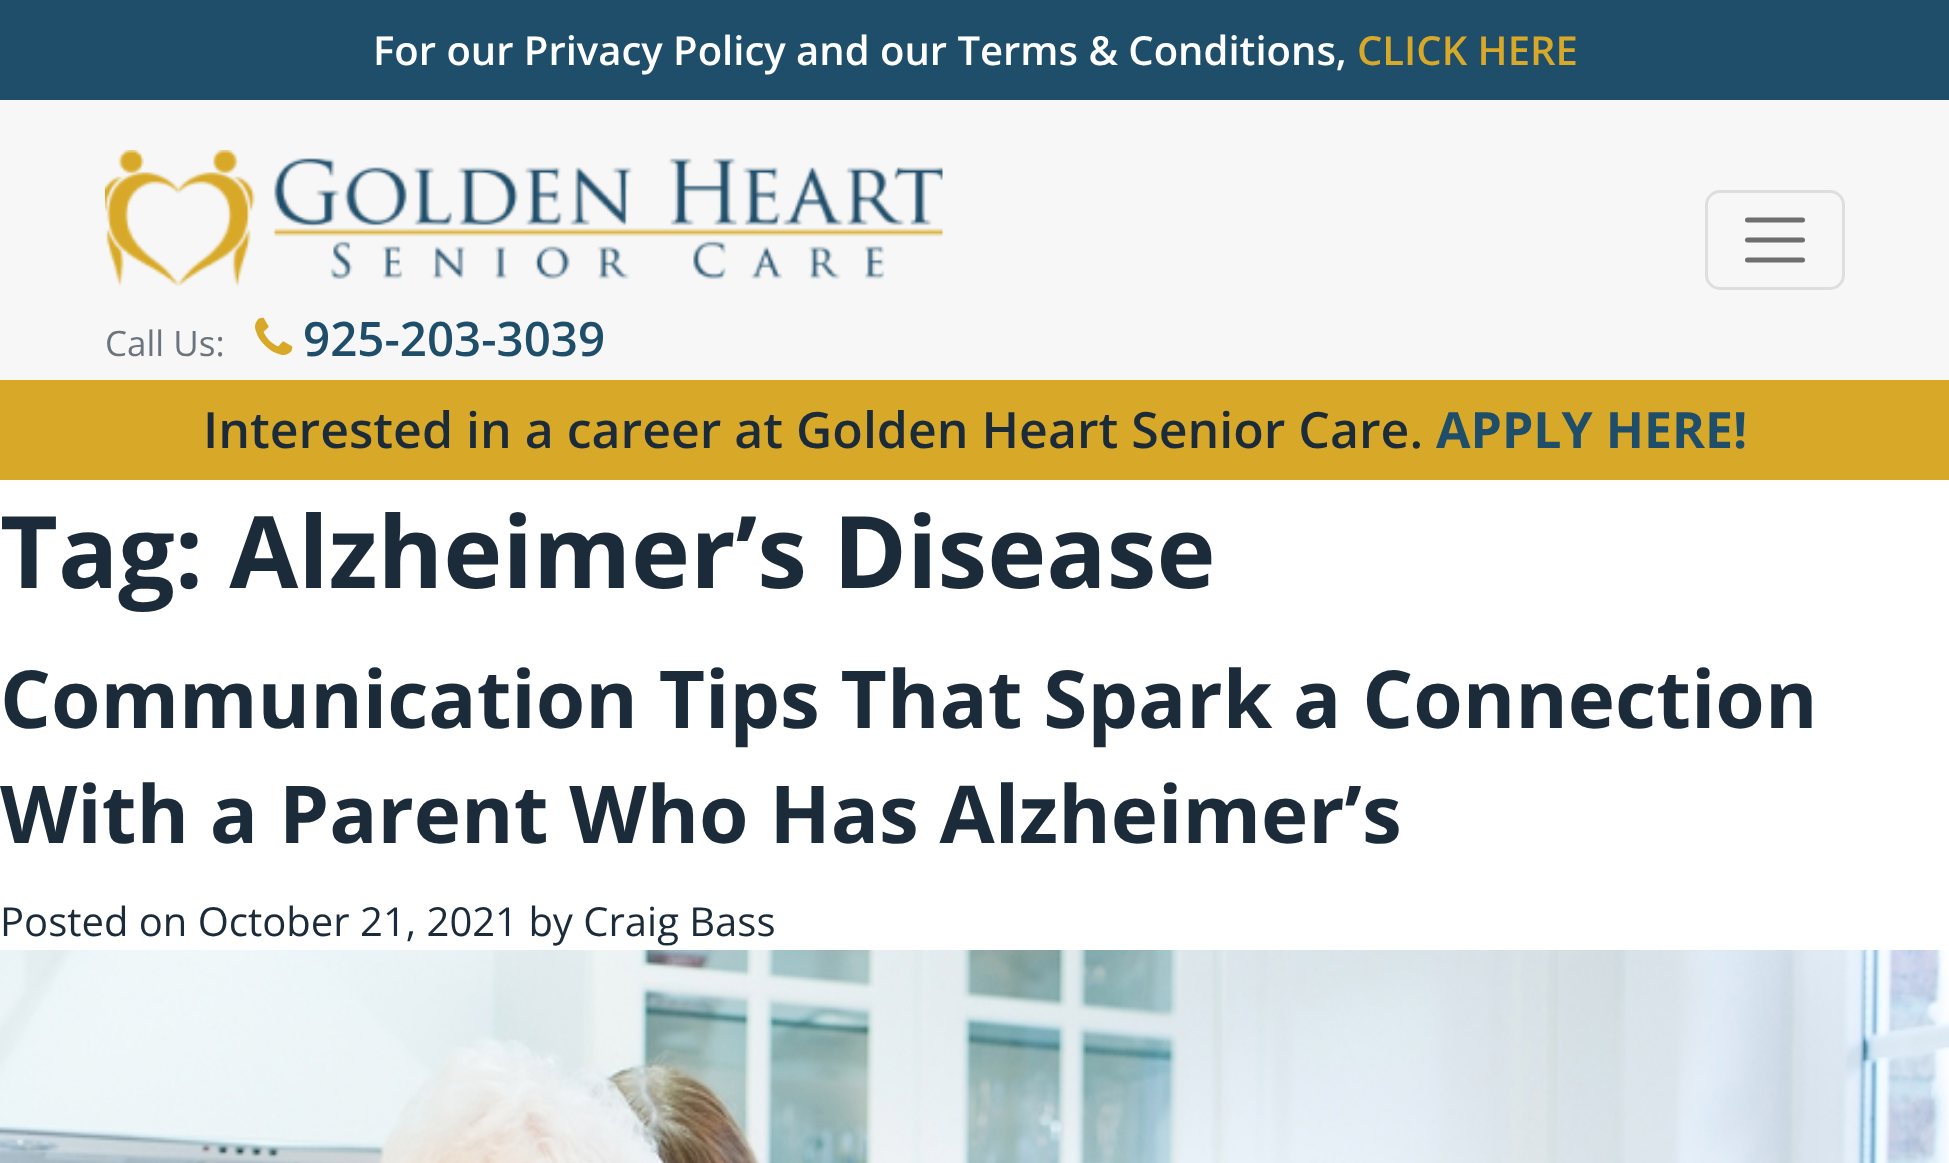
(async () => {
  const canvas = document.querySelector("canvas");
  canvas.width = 1949;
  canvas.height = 1163;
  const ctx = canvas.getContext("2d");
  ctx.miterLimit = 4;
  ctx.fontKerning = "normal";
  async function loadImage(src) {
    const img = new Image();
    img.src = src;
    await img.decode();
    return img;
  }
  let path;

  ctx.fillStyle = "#ffffff";
  ctx.fillRect(0, 0, 1949, 1163);
  ctx.fillStyle = "#1f4e6a";
  ctx.fillRect(0, 0, 1949, 100);
  ctx.fillStyle = "#f7f7f7";
  ctx.fillRect(0, 100, 1949, 280);
  ctx.beginPath();
  ctx.roundRect(1706.5, 191.5, 137, 97, 13.5);
  ctx.strokeStyle = "#dedede";
  ctx.lineWidth = 3;
  ctx.stroke();
  path = new Path2D("M1747.5 220H1802.5M1747.5 240H1802.5M1747.5 260H1802.5");
  ctx.strokeStyle = "#6f6f6f";
  ctx.lineWidth = 5;
  ctx.lineCap = "round";
  ctx.stroke(path);
  ctx.drawImage(await loadImage("img/1.png"), 105, 150, 838, 137);
  ctx.drawImage(await loadImage("img/2.png"), 255, 317, 38, 38);
  ctx.fillStyle = "#d8a929";
  ctx.fillRect(0, 380, 1949, 100);
  ctx.drawImage(await loadImage("img/3.png"), 0, 950, 1949, 213);
  ctx.font = "600 40px Open Sans";
  ctx.fillStyle = "#ffffff";
  ctx.fillText("For our Privacy Policy and our Terms & Conditions,", 373, 65);
  ctx.fillStyle = "#d8a929";
  ctx.fillText("CLICK HERE", 1357, 65);
  ctx.font = "35px Open Sans";
  ctx.fillStyle = "#6c757d";
  ctx.fillText("Call Us:", 105, 356);
  ctx.font = "600 47.5px Open Sans";
  ctx.fillStyle = "#1f4e6a";
  ctx.fillText("925-203-3039", 303, 356);
  ctx.font = "600 50px Open Sans";
  ctx.fillStyle = "#1c2b39";
  ctx.fillText("Interested in a career at Golden Heart Senior Care.", 203, 448);
  ctx.font = "bold 50px Open Sans";
  ctx.fillStyle = "#1f4e6a";
  ctx.fillText("APPLY HERE!", 1436, 448);
  ctx.font = "bold 100px Open Sans";
  ctx.fillStyle = "#1c2b39";
  ctx.fillText("Tag: Alzheimer’s Disease", 0, 588);
  ctx.font = "bold 80px Open Sans";
  ctx.fillText("Communication Tips That Spark a Connection", 0, 728);
  ctx.fillText("With a Parent Who Has Alzheimer’s", 0, 843);
  ctx.font = "40px Open Sans";
  ctx.fillText("Posted on October 21, 2021 by Craig Bass", 0, 936);
})();
